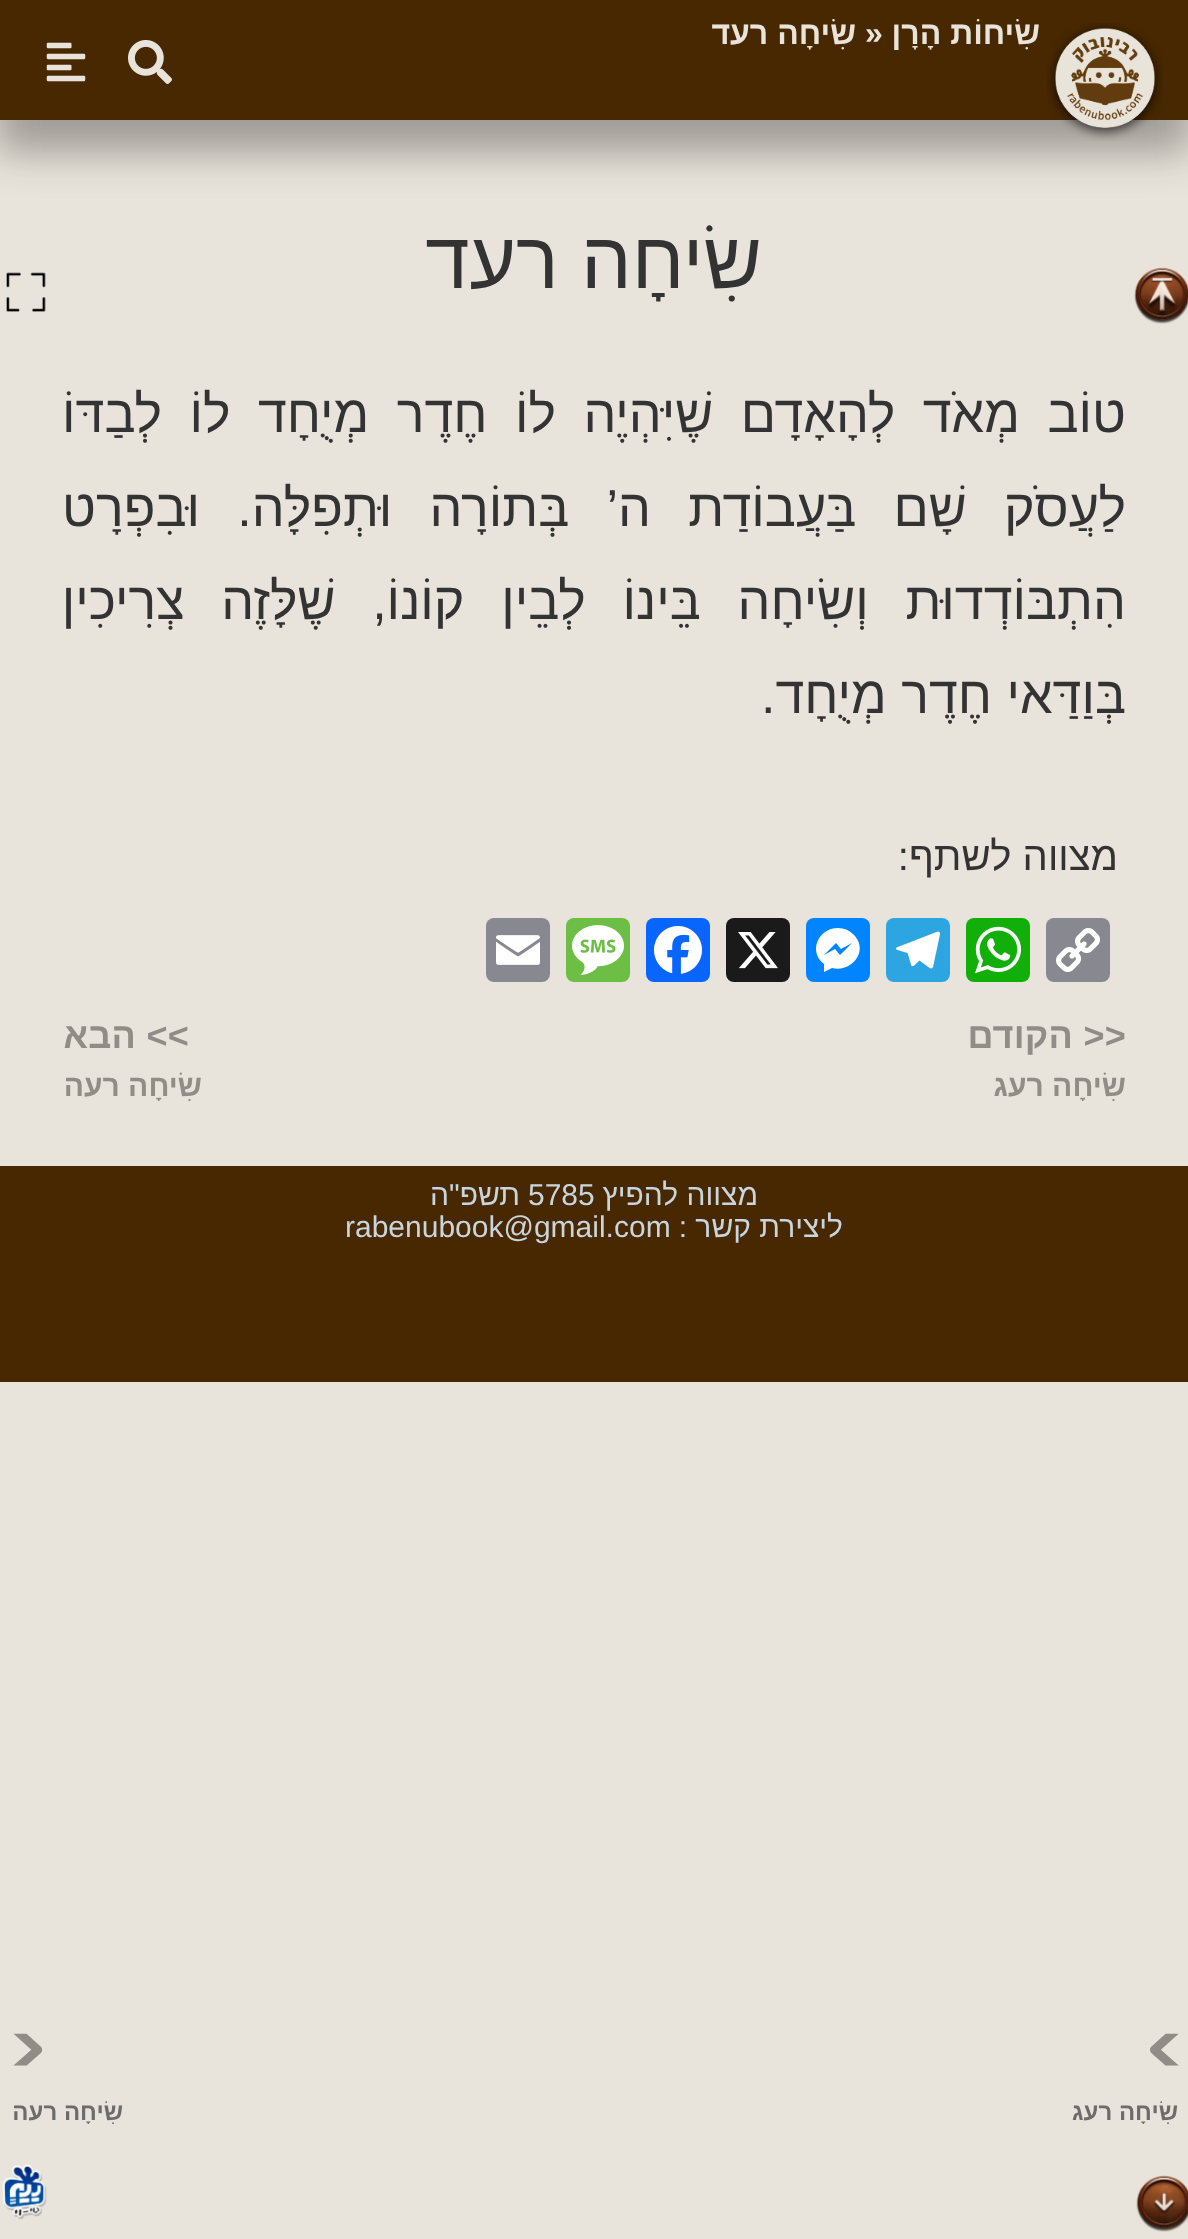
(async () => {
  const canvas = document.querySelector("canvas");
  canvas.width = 1188;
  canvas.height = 2239;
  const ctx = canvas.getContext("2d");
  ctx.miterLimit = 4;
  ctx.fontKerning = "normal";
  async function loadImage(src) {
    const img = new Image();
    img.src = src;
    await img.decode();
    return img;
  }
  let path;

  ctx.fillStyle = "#e9e4db";
  ctx.fillRect(0, 0, 1188, 2239);
  ctx.fillStyle = "rgba(54, 52, 52, 0.41)";
  ctx.filter = "blur(20px)";
  ctx.beginPath();
  ctx.rect(-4, 24, 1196, 128);
  ctx.fill();
  ctx.filter = "none";
  ctx.fillStyle = "#472800";
  ctx.fillRect(0, 0, 1188, 120);
  ctx.drawImage(await loadImage("img/1.png"), 1047, 23, 116, 118);
  ctx.drawImage(await loadImage("img/2.png"), 128, 40, 44, 44);
  ctx.drawImage(await loadImage("img/3.png"), 46, 42, 40, 40);
  ctx.drawImage(await loadImage("img/4.png"), 6, 272, 40, 40);
  ctx.drawImage(await loadImage("img/5.png"), 2, 2164, 45, 56);
  ctx.drawImage(await loadImage("img/6.png"), 1134, 267, 54, 57);
  ctx.drawImage(await loadImage("img/7.png"), 1136, 2175, 52, 57);
  ctx.fillStyle = "#888990";
  ctx.beginPath();
  ctx.roundRect(1046, 918, 64, 64, 8);
  ctx.fill();
  ctx.drawImage(await loadImage("img/8.png"), 1056, 928, 44, 44);
  ctx.fillStyle = "#12af0a";
  ctx.beginPath();
  ctx.roundRect(966, 918, 64, 64, 8);
  ctx.fill();
  ctx.drawImage(await loadImage("img/9.png"), 975, 926, 46, 48);
  ctx.fillStyle = "#2ca5e0";
  ctx.beginPath();
  ctx.roundRect(886, 918, 64, 64, 8);
  ctx.fill();
  ctx.drawImage(await loadImage("img/10.png"), 896, 931, 44, 38);
  ctx.fillStyle = "#0084ff";
  ctx.beginPath();
  ctx.roundRect(806, 918, 64, 64, 8);
  ctx.fill();
  ctx.fillStyle = "#ffffff";
  path = new Path2D("M838 928C818 928 808 952 824 964V972L832 968C852 973 870 950 853 934C849 930 844 928 838 928M840 955L835 949L824 955L836 943L841 949L852 943Z");
  ctx.fill(path);
  ctx.fillStyle = "#1a1a1a";
  ctx.beginPath();
  ctx.roundRect(726, 918, 64, 64, 8);
  ctx.fill();
  ctx.drawImage(await loadImage("img/11.png"), 738, 932, 40, 37);
  ctx.fillStyle = "#0866ff";
  ctx.beginPath();
  ctx.roundRect(646, 918, 64, 64, 8);
  ctx.fill();
  ctx.drawImage(await loadImage("img/12.png"), 654, 926, 48, 48);
  ctx.fillStyle = "#6cbe45";
  ctx.beginPath();
  ctx.roundRect(566, 918, 64, 64, 8);
  ctx.fill();
  ctx.drawImage(await loadImage("img/13.png"), 572, 925, 52, 50);
  ctx.fillStyle = "#888990";
  ctx.beginPath();
  ctx.roundRect(486, 918, 64, 64, 8);
  ctx.fill();
  ctx.drawImage(await loadImage("img/14.png"), 496, 935, 44, 30);
  ctx.fillStyle = "#472800";
  ctx.fillRect(0, 1166, 1188, 216);
  ctx.direction = "rtl";
  ctx.font = "bold 32px Liberation Sans";
  ctx.fillStyle = "#e9e4db";
  ctx.fillText("שִׂיחוֹת הָרָן", 1040, 44);
  ctx.direction = "ltr";
  ctx.fillText("»", 865, 44);
  ctx.direction = "rtl";
  ctx.fillText("שִׂיחָה רעד", 856, 44);
  ctx.font = "80px Liberation Sans";
  ctx.fillStyle = "#333333";
  ctx.fillText("שִׂיחָה רעד", 762, 288);
  ctx.wordSpacing = "13px";
  ctx.font = "52px Liberation Sans";
  ctx.fillText("טוֹב מְאֹד לְהָאָדָם שֶׁיִּהְיֶה לוֹ חֶדֶר מְיֻחָד לוֹ לְבַדּוֹ", 1126, 432);
  ctx.wordSpacing = "22.75px";
  ctx.fillText("לַעֲסֹק שָׁם בַּעֲבוֹדַת ה’ בְּתוֹרָה וּתְפִלָּה. וּבִפְרָט", 1126, 526);
  ctx.wordSpacing = "22.25px";
  ctx.fillText("הִתְבּוֹדְדוּת וְשִׂיחָה בֵּינוֹ לְבֵין קוֹנוֹ, שֶׁלָּזֶה צְרִיכִין", 1126, 619);
  ctx.wordSpacing = "0px";
  ctx.fillText("בְּוַדַּאי חֶדֶר מְיֻחָד.", 1126, 713);
  ctx.font = "40px Liberation Sans";
  ctx.fillText("מצווה לשתף:", 1118, 870);
  ctx.letterSpacing = "0.25px";
  ctx.font = "bold 36px Liberation Sans";
  ctx.fillStyle = "#908d88";
  ctx.fillText("<< הקודם", 1126, 1048);
  ctx.letterSpacing = "0px";
  ctx.font = "bold 30px Liberation Sans";
  ctx.fillText("שִׂיחָה רעג", 1126, 1096);
  ctx.letterSpacing = "0.25px";
  ctx.font = "bold 36px Liberation Sans";
  ctx.fillText(">> הבא", 189, 1048);
  ctx.letterSpacing = "0px";
  ctx.font = "bold 30px Liberation Sans";
  ctx.fillText("שִׂיחָה רעה", 202, 1096);
  ctx.direction = "ltr";
  ctx.font = "bold 58px Audiowide";
  ctx.fillText("<", 1148, 2071);
  ctx.direction = "rtl";
  ctx.font = "bold 24px Liberation Sans";
  ctx.fillStyle = "#6c6c6c";
  ctx.fillText("שִׂיחָה רעג", 1178, 2120);
  ctx.direction = "ltr";
  ctx.font = "bold 58px Audiowide";
  ctx.fillStyle = "#908d88";
  ctx.fillText(">", 12, 2071);
  ctx.direction = "rtl";
  ctx.font = "bold 24px Liberation Sans";
  ctx.fillStyle = "#6c6c6c";
  ctx.fillText("שִׂיחָה רעה", 123, 2120);
  ctx.font = "30px Liberation Sans";
  ctx.fillStyle = "#c8d5dc";
  ctx.fillText("מצווה להפיץ", 758, 1205);
  ctx.direction = "ltr";
  ctx.fillText("5785", 528, 1205);
  ctx.direction = "rtl";
  ctx.fillText("תשפ\"ה", 520, 1205);
  ctx.fillText("ליצירת קשר :", 843, 1237);
  ctx.direction = "ltr";
  ctx.fillText("rabenubook@gmail.com", 345, 1237);
})();
